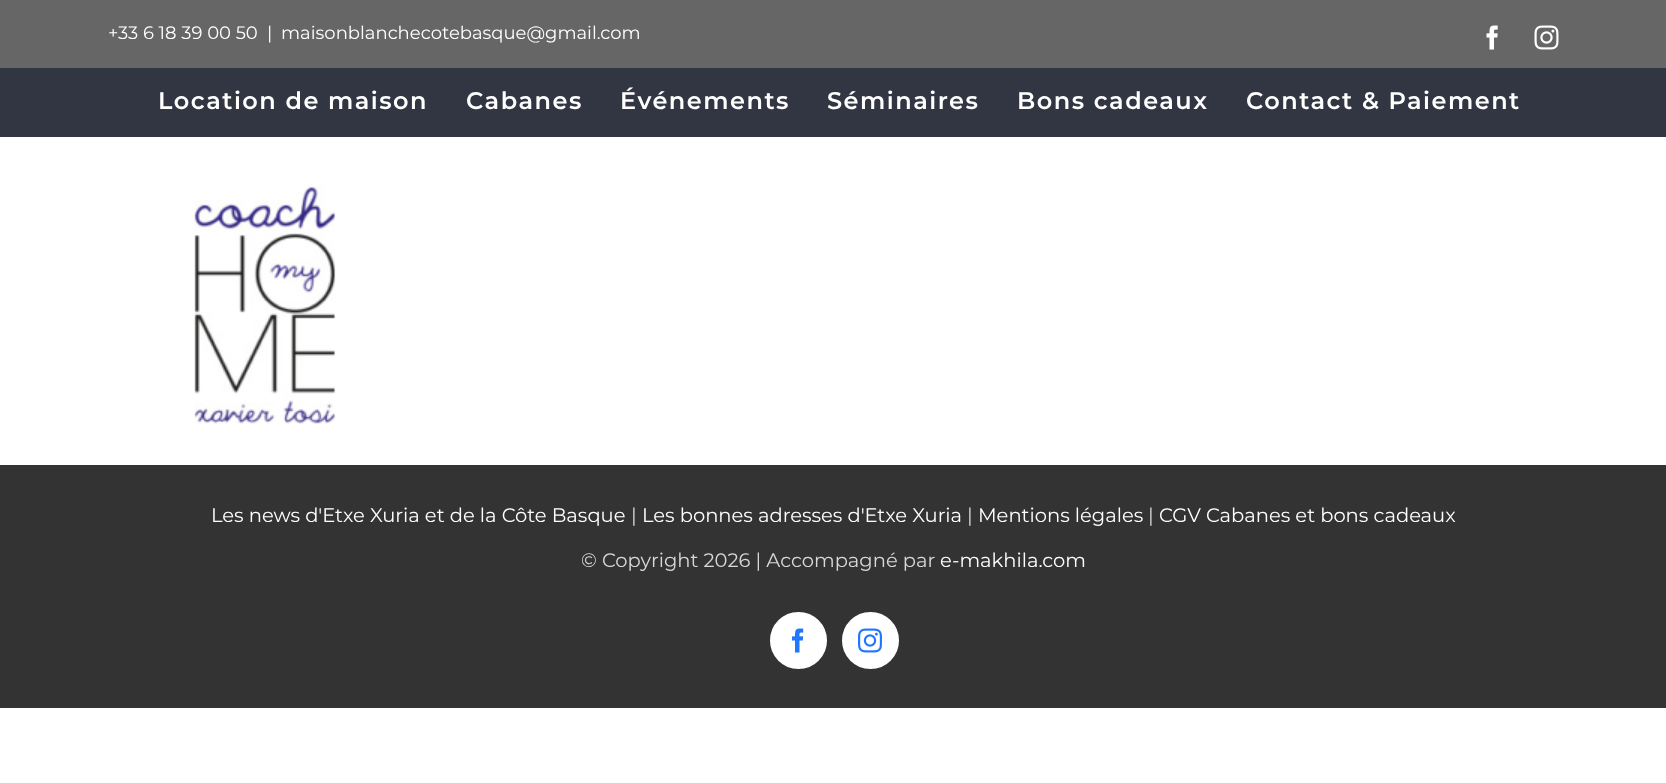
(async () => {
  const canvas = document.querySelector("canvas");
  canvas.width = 1666;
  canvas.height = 783;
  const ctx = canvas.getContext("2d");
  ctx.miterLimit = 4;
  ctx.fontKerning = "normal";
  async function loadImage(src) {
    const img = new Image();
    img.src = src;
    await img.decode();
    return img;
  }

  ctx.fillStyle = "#ffffff";
  ctx.fillRect(0, 0, 1666, 783);
  ctx.fillStyle = "#666666";
  ctx.fillRect(0, 0, 1666, 68);
  ctx.drawImage(await loadImage("img/1.png"), 1486, 25, 12, 25);
  ctx.drawImage(await loadImage("img/2.png"), 1534, 25, 25, 25);
  ctx.fillStyle = "#323643";
  ctx.fillRect(0, 68, 1666, 69);
  ctx.drawImage(await loadImage("img/3.png"), 194, 183, 142, 241);
  ctx.fillStyle = "#333333";
  ctx.fillRect(0, 465, 1666, 243);
  ctx.fillStyle = "#ffffff";
  ctx.beginPath();
  ctx.arc(798.5, 640.5, 27.5, 0, Math.PI * 2);
  ctx.fill();
  ctx.strokeStyle = "#ffffff";
  ctx.lineWidth = 2;
  ctx.stroke();
  ctx.drawImage(await loadImage("img/4.png"), 792, 628, 12, 25);
  ctx.beginPath();
  ctx.arc(870.5, 640.5, 27.5, 0, Math.PI * 2);
  ctx.fill();
  ctx.stroke();
  ctx.drawImage(await loadImage("img/5.png"), 858, 628, 24, 25);
  ctx.font = "18px Montserrat";
  for (const [text, x, y] of [
    ["+33 6 18 39 00 50", 108, 39],
    ["|", 267, 39],
    ["maisonblanchecotebasque@gmail.com", 281, 39],
  ]) {
    ctx.fillText(text, x, y);
  }
  ctx.letterSpacing = "1.5px";
  ctx.font = "600 24px Montserrat";
  for (const [text, x, y] of [
    ["Location de maison", 158, 109],
    ["Cabanes", 466, 109],
    ["Événements", 620, 109],
    ["Séminaires", 827, 109],
    ["Bons cadeaux", 1017, 109],
    ["Contact & Paiement", 1246, 109],
  ]) {
    ctx.fillText(text, x, y);
  }
  ctx.letterSpacing = "0px";
  ctx.font = "19.5px Montserrat";
  ctx.fillText("Les news d'Etxe Xuria et de la Côte Basque", 211, 522);
  ctx.fillStyle = "#d8d8d8";
  ctx.fillText("|", 631, 522);
  ctx.fillStyle = "#ffffff";
  ctx.fillText("Les bonnes adresses d'Etxe Xuria", 642, 522);
  ctx.fillStyle = "#d8d8d8";
  ctx.fillText("|", 967, 522);
  ctx.fillStyle = "#ffffff";
  ctx.fillText("Mentions légales", 978, 522);
  ctx.fillStyle = "#d8d8d8";
  ctx.fillText("|", 1148, 522);
  ctx.fillStyle = "#ffffff";
  ctx.fillText("CGV Cabanes et bons cadeaux", 1159, 522);
  ctx.fillStyle = "#d8d8d8";
  ctx.fillText("© Copyright 2026 | Accompagné par", 581, 567);
  ctx.fillStyle = "#ffffff";
  ctx.fillText("e-makhila.com", 940, 567);
})();
